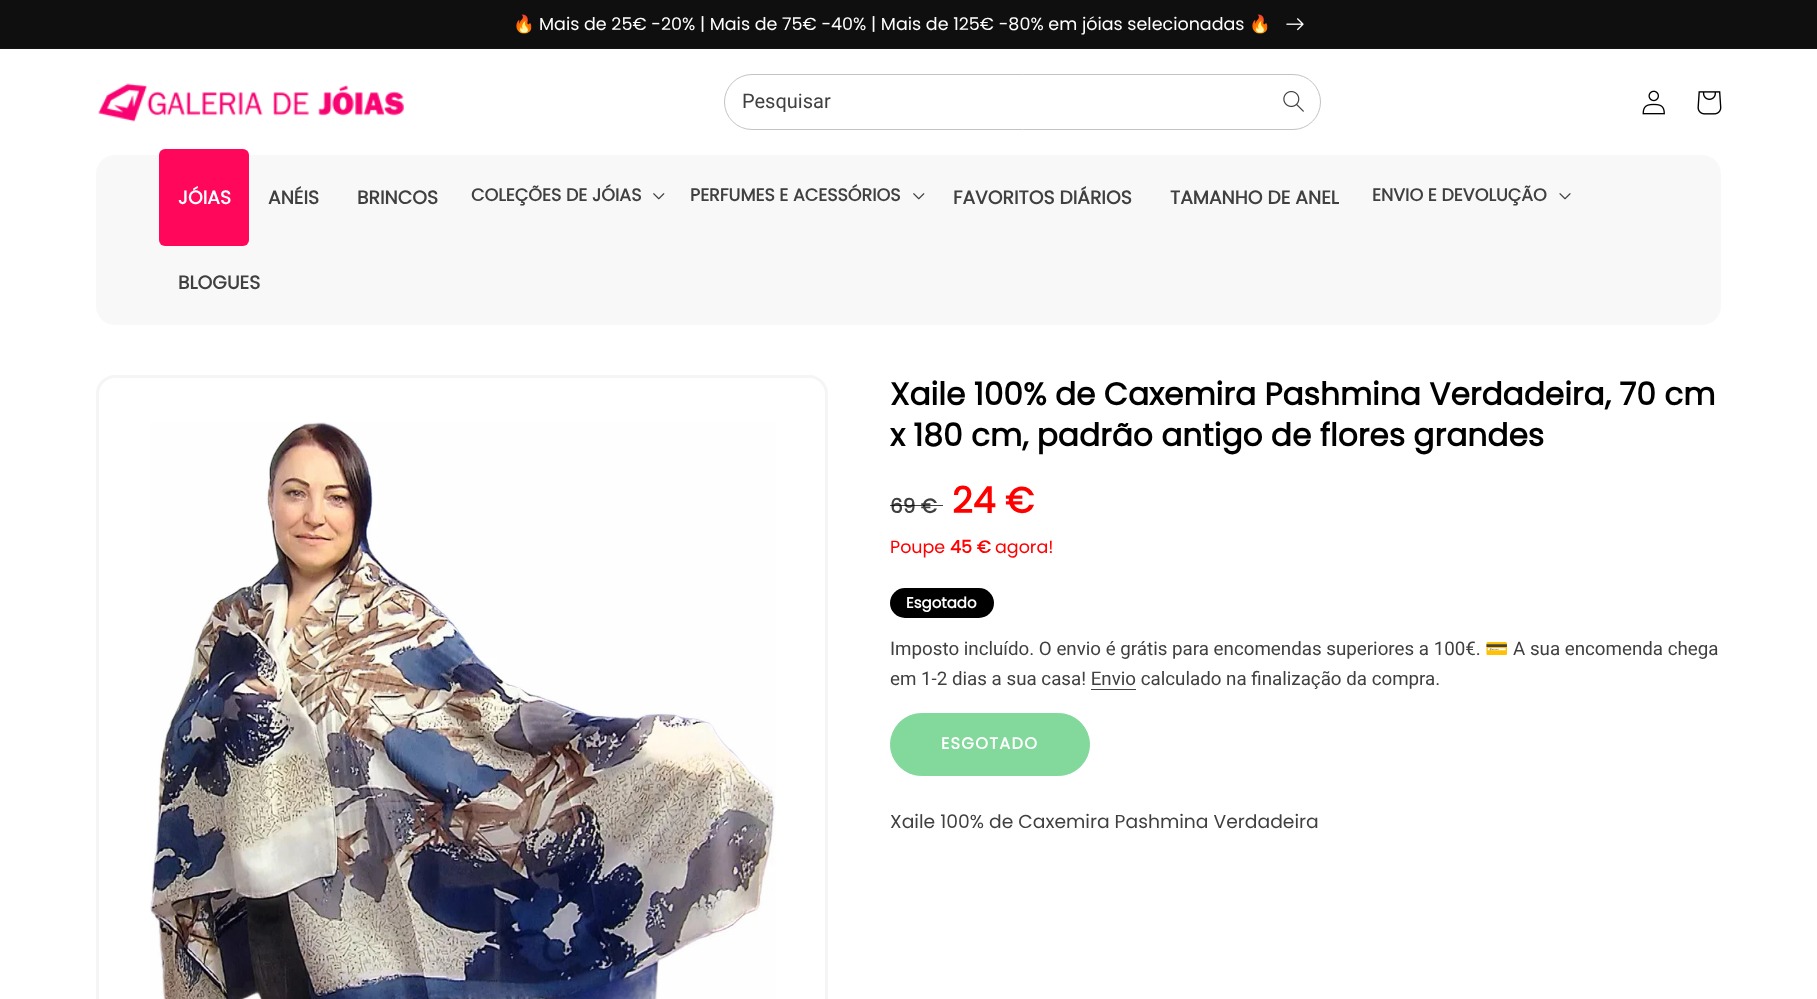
(async () => {
  const canvas = document.querySelector("canvas");
  canvas.width = 1817;
  canvas.height = 999;
  const ctx = canvas.getContext("2d");
  ctx.miterLimit = 4;
  ctx.fontKerning = "normal";
  async function loadImage(src) {
    const img = new Image();
    img.src = src;
    await img.decode();
    return img;
  }

  ctx.fillStyle = "#ffffff";
  ctx.fillRect(0, 0, 1817, 999);
  ctx.fillStyle = "#141414";
  ctx.fillRect(0, 48, 1817, 1);
  ctx.fillStyle = "#0f0f0f";
  ctx.fillRect(0, 0, 1817, 48);
  ctx.drawImage(await loadImage("img/1.png"), 1286, 18, 18, 13);
  ctx.drawImage(await loadImage("img/2.png"), 98, 83, 306, 39);
  ctx.beginPath();
  ctx.roundRect(724.5, 74.5, 596, 55, 27.5);
  ctx.strokeStyle = "#c3c3c3";
  ctx.stroke();
  ctx.drawImage(await loadImage("img/3.png"), 1283, 91, 21, 21);
  ctx.drawImage(await loadImage("img/4.png"), 1642, 90, 23, 25);
  ctx.drawImage(await loadImage("img/5.png"), 1697, 91, 25, 24);
  ctx.fillStyle = "#f8f8f8";
  ctx.beginPath();
  ctx.roundRect(96, 155, 1625, 170, 19);
  ctx.fill();
  ctx.fillStyle = "#ff085c";
  ctx.fillRect(159, 155, 90, 85);
  ctx.beginPath();
  ctx.roundRect(159, 149, 90, 6, [6, 6, 0, 0]);
  ctx.fill();
  ctx.beginPath();
  ctx.roundRect(159, 240, 90, 6, [0, 0, 6, 6]);
  ctx.fill();
  ctx.drawImage(await loadImage("img/6.png"), 653, 193, 12, 7);
  ctx.drawImage(await loadImage("img/6.png"), 913, 193, 12, 7);
  ctx.drawImage(await loadImage("img/7.png"), 1559, 193, 12, 7);
  ctx.beginPath();
  ctx.roundRect(97.5, 376.5, 729, 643, 17.5);
  ctx.strokeStyle = "#f5f5f5";
  ctx.lineWidth = 3;
  ctx.stroke();
  ctx.drawImage(await loadImage("img/8.png"), 150, 422, 626, 577);
  ctx.fillStyle = "#000000";
  ctx.beginPath();
  ctx.roundRect(890, 588, 104, 30, 15);
  ctx.fill();
  ctx.fillStyle = "#404040";
  ctx.fillRect(1091, 689, 45, 1);
  ctx.fillStyle = "#82d99b";
  ctx.beginPath();
  ctx.roundRect(890.5, 713.5, 199, 62, 31);
  ctx.fill();
  ctx.strokeStyle = "#82d99b";
  ctx.lineWidth = 1;
  ctx.stroke();
  ctx.font = "17.5px Noto Color Emoji";
  ctx.fillStyle = "#ffffff";
  ctx.fillText("🔥", 513, 30);
  ctx.font = "17.5px Poppins";
  ctx.fillText("Mais de 25€ -20% | Mais de 75€ -40% | Mais de 125€ -80% em jóias selecionadas", 539, 30);
  ctx.font = "17.5px Noto Color Emoji";
  ctx.fillText("🔥", 1249, 30);
  ctx.font = "20px Roboto";
  ctx.fillStyle = "#404040";
  ctx.fillText("Pesquisar", 742, 108);
  ctx.font = "bold 18.75px Poppins";
  ctx.fillStyle = "#ffffff";
  ctx.fillText("JÓIAS", 178, 204);
  ctx.fillStyle = "#404040";
  ctx.fillText("ANÉIS", 268, 204);
  ctx.fillText("BRINCOS", 357, 204);
  ctx.font = "bold 17.5px Poppins";
  ctx.fillText("COLEÇÕES DE JÓIAS", 471, 201);
  ctx.fillText("PERFUMES E ACESSÓRIOS", 690, 201);
  ctx.font = "bold 18.75px Poppins";
  ctx.fillText("FAVORITOS DIÁRIOS", 953, 204);
  ctx.fillText("TAMANHO DE ANEL", 1170, 204);
  ctx.font = "bold 17.5px Poppins";
  ctx.fillText("ENVIO E DEVOLUÇÃO", 1372, 201);
  ctx.font = "bold 18.75px Poppins";
  ctx.fillText("BLOGUES", 178, 289);
  ctx.font = "bold 31.25px Poppins";
  ctx.fillStyle = "#000000";
  ctx.fillText("Xaile 100% de Caxemira Pashmina Verdadeira, 70 cm", 890, 405);
  ctx.fillText("x 180 cm, padrão antigo de flores grandes", 890, 446);
  ctx.font = "bold 20px Poppins";
  ctx.fillStyle = "#404040";
  ctx.fillText("69 €", 890, 513);
  ctx.fillStyle = "rgba(0, 0, 0, 0.75)";
  ctx.fillRect(890, 505, 53, 1);
  ctx.font = "bold 36px Poppins";
  ctx.fillStyle = "#ff0000";
  ctx.fillText("24 €", 952, 513);
  ctx.font = "17.5px Poppins";
  ctx.fillText("Poupe", 890, 553);
  ctx.font = "bold 17.5px Poppins";
  ctx.fillText("45 €", 950, 553);
  ctx.font = "17.5px Poppins";
  ctx.fillText("agora!", 995, 553);
  ctx.font = "bold 15px Poppins";
  ctx.fillStyle = "#ffffff";
  ctx.fillText("Esgotado", 906, 608);
  ctx.font = "18.75px Roboto";
  ctx.fillStyle = "#404040";
  ctx.fillText("Imposto incluído. O envio é grátis para encomendas superiores a 100€.", 890, 655);
  ctx.font = "18.75px Noto Color Emoji";
  ctx.fillText("💳", 1485, 655);
  ctx.font = "18.75px Roboto";
  ctx.fillText("A sua encomenda chega", 1513, 655);
  ctx.fillText("em 1-2 dias a sua casa! Envio calculado na finalização da compra.", 890, 685);
  ctx.letterSpacing = "1.25px";
  ctx.font = "bold 16.25px Poppins";
  ctx.fillStyle = "#ffffff";
  ctx.fillText("ESGOTADO", 941, 749);
  ctx.letterSpacing = "0px";
  ctx.font = "18.75px Poppins";
  ctx.fillStyle = "#404040";
  ctx.fillText("Xaile 100% de Caxemira Pashmina Verdadeira", 890, 828);
})();
